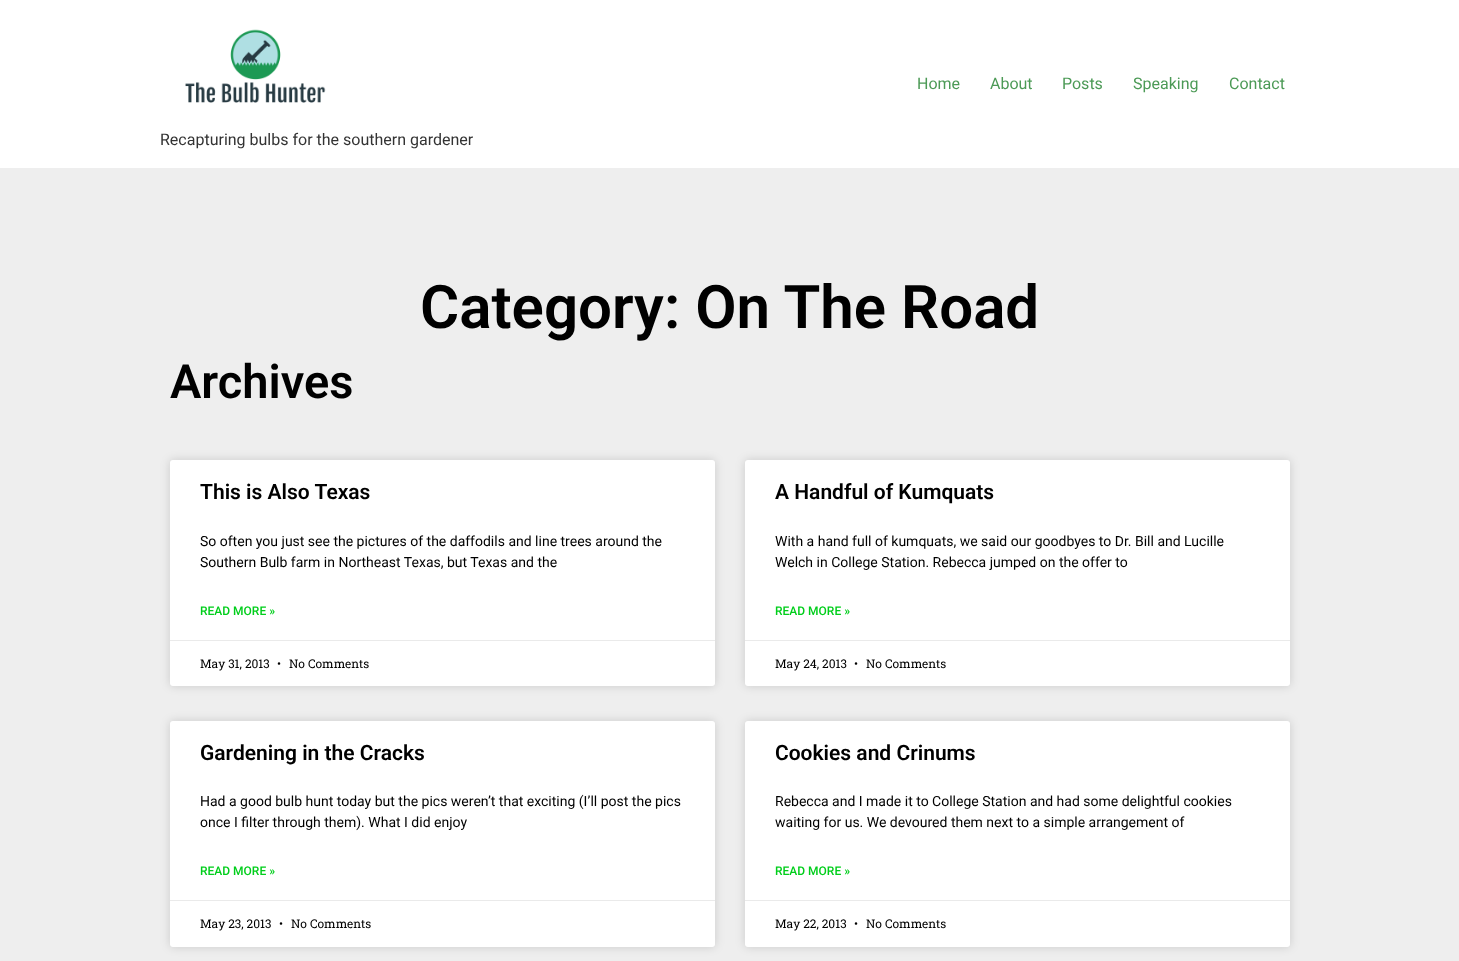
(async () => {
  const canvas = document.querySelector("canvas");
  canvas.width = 1459;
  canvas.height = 961;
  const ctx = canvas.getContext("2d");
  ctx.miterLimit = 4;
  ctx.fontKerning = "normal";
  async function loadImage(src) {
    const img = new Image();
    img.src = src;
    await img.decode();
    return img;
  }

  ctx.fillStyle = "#ffffff";
  ctx.fillRect(0, 0, 1459, 961);
  ctx.drawImage(await loadImage("img/1.png"), 185, 29, 141, 74);
  ctx.fillStyle = "#eeeeee";
  ctx.fillRect(0, 168, 1459, 793);
  ctx.fillStyle = "rgba(0, 0, 0, 0.15)";
  ctx.filter = "blur(5px)";
  ctx.beginPath();
  ctx.roundRect(170, 460, 545, 226, 3);
  ctx.fill();
  ctx.filter = "none";
  ctx.fillStyle = "#ffffff";
  ctx.beginPath();
  ctx.roundRect(170, 460, 545, 226, 3);
  ctx.fill();
  ctx.fillStyle = "#eaeaea";
  ctx.fillRect(170, 640, 545, 1);
  ctx.fillStyle = "rgba(0, 0, 0, 0.15)";
  ctx.filter = "blur(5px)";
  ctx.beginPath();
  ctx.roundRect(745, 460, 545, 226, 3);
  ctx.fill();
  ctx.filter = "none";
  ctx.fillStyle = "#ffffff";
  ctx.beginPath();
  ctx.roundRect(745, 460, 545, 226, 3);
  ctx.fill();
  ctx.fillStyle = "#eaeaea";
  ctx.fillRect(745, 640, 545, 1);
  ctx.fillStyle = "rgba(0, 0, 0, 0.15)";
  ctx.filter = "blur(5px)";
  ctx.beginPath();
  ctx.roundRect(170, 721, 545, 226, 3);
  ctx.fill();
  ctx.filter = "none";
  ctx.fillStyle = "#ffffff";
  ctx.beginPath();
  ctx.roundRect(170, 721, 545, 226, 3);
  ctx.fill();
  ctx.fillStyle = "#eaeaea";
  ctx.fillRect(170, 900, 545, 1);
  ctx.fillStyle = "rgba(0, 0, 0, 0.15)";
  ctx.filter = "blur(5px)";
  ctx.beginPath();
  ctx.roundRect(745, 721, 545, 226, 3);
  ctx.fill();
  ctx.filter = "none";
  ctx.fillStyle = "#ffffff";
  ctx.beginPath();
  ctx.roundRect(745, 721, 545, 226, 3);
  ctx.fill();
  ctx.fillStyle = "#eaeaea";
  ctx.fillRect(745, 900, 545, 1);
  ctx.font = "16px Roboto";
  ctx.fillStyle = "#4c9a56";
  for (const [text, x, y] of [
    ["Home", 917, 89],
    ["About", 990, 89],
    ["Posts", 1062, 89],
    ["Speaking", 1133, 89],
    ["Contact", 1229, 89],
  ]) {
    ctx.fillText(text, x, y);
  }
  ctx.fillStyle = "#333333";
  ctx.fillText("Recapturing bulbs for the southern gardener", 160, 145);
  ctx.font = "600 60px Roboto";
  ctx.fillStyle = "#000000";
  ctx.fillText("Category: On The Road", 420, 328);
  ctx.font = "600 47px Roboto";
  ctx.fillText("Archives", 170, 398);
  ctx.font = "600 21px Roboto";
  ctx.fillText("This is Also Texas", 200, 499);
  ctx.font = "14px Roboto";
  ctx.fillText("So often you just see the pictures of the daffodils and line trees around the", 200, 546);
  ctx.fillText("Southern Bulb farm in Northeast Texas, but Texas and the", 200, 567);
  ctx.font = "500 12px Roboto";
  ctx.fillStyle = "#00ce1b";
  ctx.fillText("READ MORE »", 200, 615);
  ctx.font = "12px Roboto Slab";
  ctx.fillStyle = "#000000";
  for (const [text, x, y] of [
    ["May 31, 2013", 200, 668],
    ["•", 277, 668],
    ["No Comments", 289, 668],
  ]) {
    ctx.fillText(text, x, y);
  }
  ctx.font = "600 21px Roboto";
  ctx.fillText("A Handful of Kumquats", 775, 499);
  ctx.font = "14px Roboto";
  ctx.fillText("With a hand full of kumquats, we said our goodbyes to Dr. Bill and Lucille", 775, 546);
  ctx.fillText("Welch in College Station. Rebecca jumped on the offer to", 775, 567);
  ctx.font = "500 12px Roboto";
  ctx.fillStyle = "#00ce1b";
  ctx.fillText("READ MORE »", 775, 615);
  ctx.font = "12px Roboto Slab";
  ctx.fillStyle = "#000000";
  for (const [text, x, y] of [
    ["May 24, 2013", 775, 668],
    ["•", 854, 668],
    ["No Comments", 866, 668],
  ]) {
    ctx.fillText(text, x, y);
  }
  ctx.font = "600 21px Roboto";
  ctx.fillText("Gardening in the Cracks", 200, 760);
  ctx.font = "14px Roboto";
  ctx.fillText("Had a good bulb hunt today but the pics weren’t that exciting (I’ll post the pics", 200, 806);
  ctx.fillText("once I filter through them). What I did enjoy", 200, 827);
  ctx.font = "500 12px Roboto";
  ctx.fillStyle = "#00ce1b";
  ctx.fillText("READ MORE »", 200, 875);
  ctx.font = "12px Roboto Slab";
  ctx.fillStyle = "#000000";
  for (const [text, x, y] of [
    ["May 23, 2013", 200, 928],
    ["•", 279, 928],
    ["No Comments", 291, 928],
  ]) {
    ctx.fillText(text, x, y);
  }
  ctx.font = "600 21px Roboto";
  ctx.fillText("Cookies and Crinums", 775, 760);
  ctx.font = "14px Roboto";
  ctx.fillText("Rebecca and I made it to College Station and had some delightful cookies", 775, 806);
  ctx.fillText("waiting for us. We devoured them next to a simple arrangement of", 775, 827);
  ctx.font = "500 12px Roboto";
  ctx.fillStyle = "#00ce1b";
  ctx.fillText("READ MORE »", 775, 875);
  ctx.font = "12px Roboto Slab";
  ctx.fillStyle = "#000000";
  for (const [text, x, y] of [
    ["May 22, 2013", 775, 928],
    ["•", 854, 928],
    ["No Comments", 866, 928],
  ]) {
    ctx.fillText(text, x, y);
  }
})();
